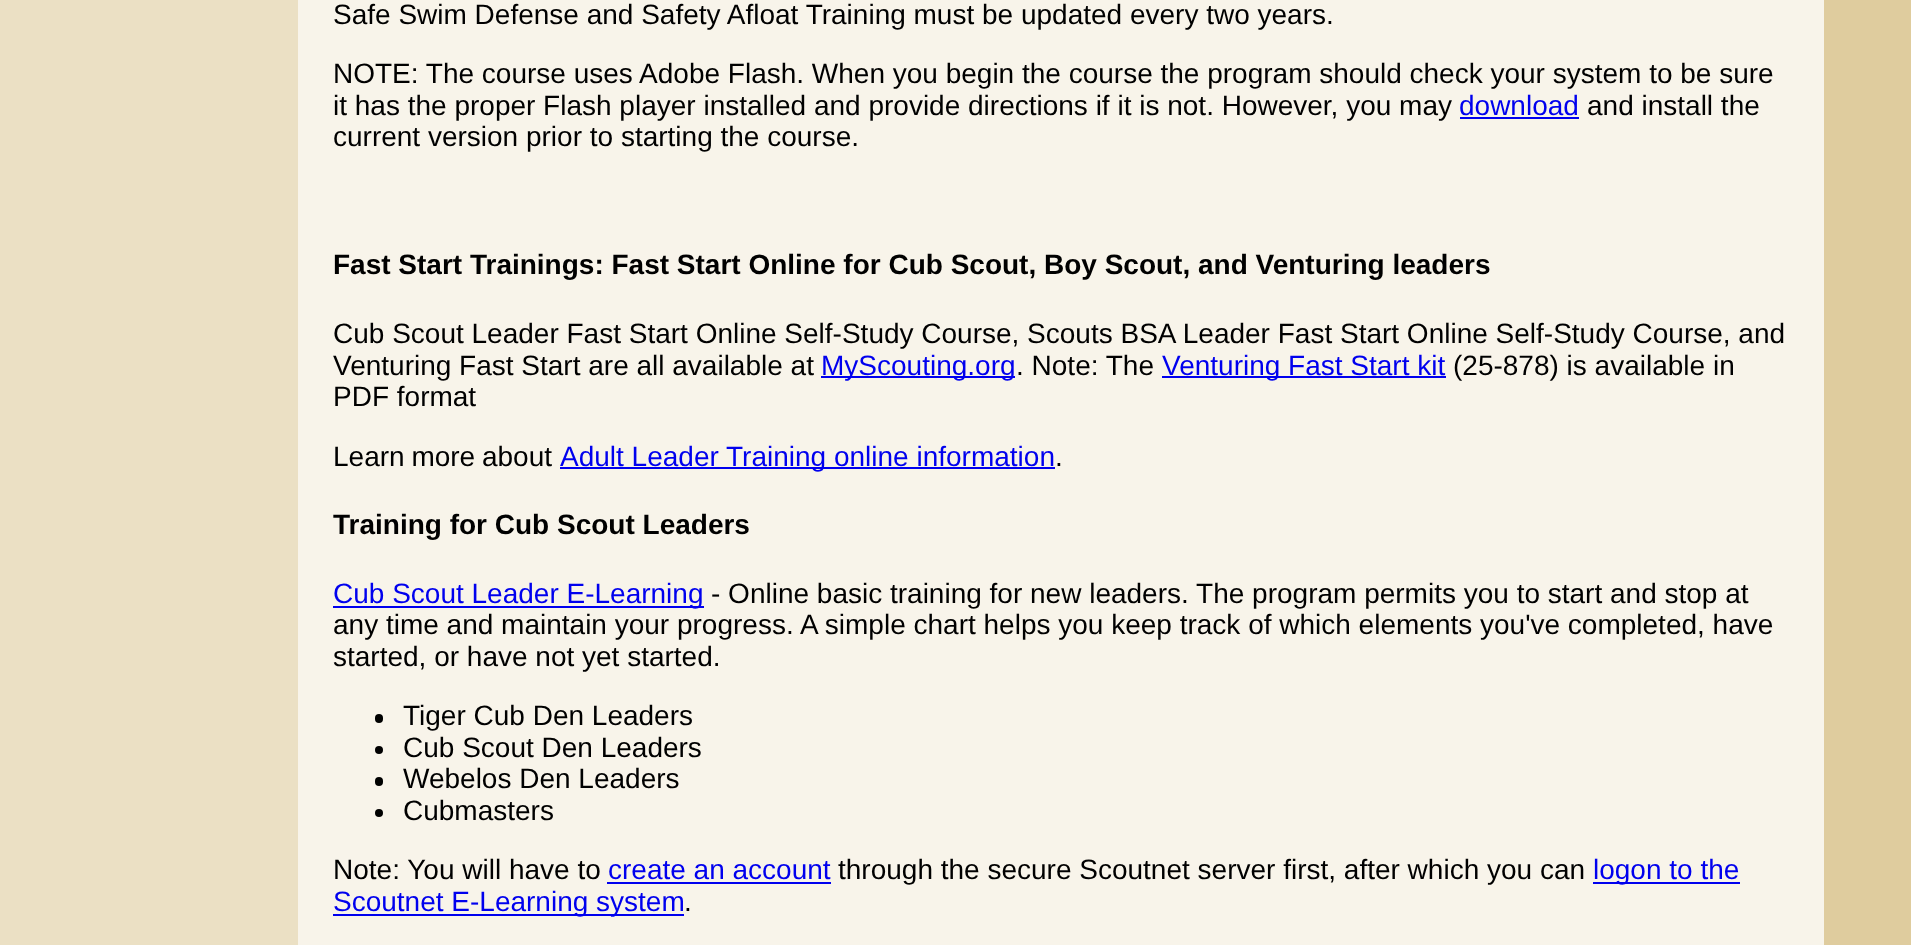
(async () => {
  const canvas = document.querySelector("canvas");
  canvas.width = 1911;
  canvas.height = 945;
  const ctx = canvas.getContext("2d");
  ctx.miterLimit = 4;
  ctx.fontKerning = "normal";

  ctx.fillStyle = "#dfcc9e";
  ctx.fillRect(0, 0, 1911, 945);
  for (const [x, y, w, h, color] of [
    [0, 0, 298, 945, "#ebe0c4"],
    [298, 0, 1526, 945, "#f8f4ea"],
    [1460, 117, 119, 2, "#0000ee"],
    [821, 376, 194, 2, "#0000ee"],
    [1162, 376, 284, 2, "#0000ee"],
    [560, 467, 495, 2, "#0000ee"],
    [333, 606, 371, 2, "#0000ee"],
  ]) {
    ctx.fillStyle = color;
    ctx.fillRect(x, y, w, h);
  }
  ctx.fillStyle = "#000000";
  ctx.beginPath();
  ctx.roundRect(375, 714, 8, 9, 4);
  ctx.fill();
  ctx.beginPath();
  ctx.arc(379, 750, 4, 0, Math.PI * 2);
  ctx.fill();
  ctx.beginPath();
  ctx.roundRect(375, 777, 8, 9, 4);
  ctx.fill();
  ctx.beginPath();
  ctx.arc(379, 813, 4, 0, Math.PI * 2);
  ctx.fill();
  for (const [x, y, w, h, color] of [
    [607, 882, 224, 2, "#0000ee"],
    [1593, 882, 147, 2, "#0000ee"],
    [333, 914, 351, 2, "#0000ee"],
  ]) {
    ctx.fillStyle = color;
    ctx.fillRect(x, y, w, h);
  }
  ctx.font = "28px Liberation Sans";
  ctx.fillStyle = "#000000";
  for (const [text, x, y] of [
    ["Safe Swim Defense and Safety Afloat Training must be updated every two years.", 333, 24],
    ["NOTE: The course uses Adobe Flash. When you begin the course the program should check your system to be sure", 333, 83],
    ["it has the proper Flash player installed and provide directions if it is not. However, you may", 333, 115],
  ]) {
    ctx.fillText(text, x, y);
  }
  ctx.fillStyle = "#0000ee";
  ctx.fillText("download", 1459, 115);
  ctx.fillStyle = "#000000";
  ctx.fillText("and install the", 1587, 115);
  ctx.fillText("current version prior to starting the course.", 333, 146);
  ctx.font = "bold 28px Liberation Sans";
  ctx.fillText("Fast Start Trainings: Fast Start Online for Cub Scout, Boy Scout, and Venturing leaders", 333, 274);
  ctx.font = "28px Liberation Sans";
  ctx.fillText("Cub Scout Leader Fast Start Online Self-Study Course, Scouts BSA Leader Fast Start Online Self-Study Course, and", 333, 343);
  ctx.fillText("Venturing Fast Start are all available at", 333, 375);
  ctx.fillStyle = "#0000ee";
  ctx.fillText("MyScouting.org", 821, 375);
  ctx.fillStyle = "#000000";
  ctx.fillText(". Note: The", 1016, 375);
  ctx.fillStyle = "#0000ee";
  ctx.fillText("Venturing Fast Start kit", 1162, 375);
  ctx.fillStyle = "#000000";
  ctx.fillText("(25-878) is available in", 1453, 375);
  ctx.fillText("PDF format", 333, 406);
  ctx.wordSpacing = "-1px";
  ctx.fillText("Learn more about", 333, 466);
  ctx.wordSpacing = "0px";
  ctx.fillStyle = "#0000ee";
  ctx.fillText("Adult Leader Training online information", 560, 466);
  ctx.fillStyle = "#000000";
  ctx.fillText(".", 1055, 466);
  ctx.font = "bold 28px Liberation Sans";
  ctx.fillText("Training for Cub Scout Leaders", 333, 534);
  ctx.font = "28px Liberation Sans";
  ctx.fillStyle = "#0000ee";
  ctx.fillText("Cub Scout Leader E-Learning", 333, 603);
  ctx.fillStyle = "#000000";
  for (const [text, x, y] of [
    ["- Online basic training for new leaders. The program permits you to start and stop at", 711, 603],
    ["any time and maintain your progress. A simple chart helps you keep track of which elements you've completed, have", 333, 634],
    ["started, or have not yet started.", 333, 666],
    ["Tiger Cub Den Leaders", 403, 725],
    ["Cub Scout Den Leaders", 403, 757],
    ["Webelos Den Leaders", 403, 788],
    ["Cubmasters", 403, 820],
    ["Note: You will have to", 333, 879],
  ]) {
    ctx.fillText(text, x, y);
  }
  ctx.fillStyle = "#0000ee";
  ctx.fillText("create an account", 608, 879);
  ctx.fillStyle = "#000000";
  ctx.fillText("through the secure Scoutnet server first, after which you can", 838, 879);
  ctx.fillStyle = "#0000ee";
  ctx.fillText("logon to the", 1593, 879);
  ctx.fillText("Scoutnet E-Learning system", 333, 911);
  ctx.fillStyle = "#000000";
  ctx.fillText(".", 684, 911);
})();
